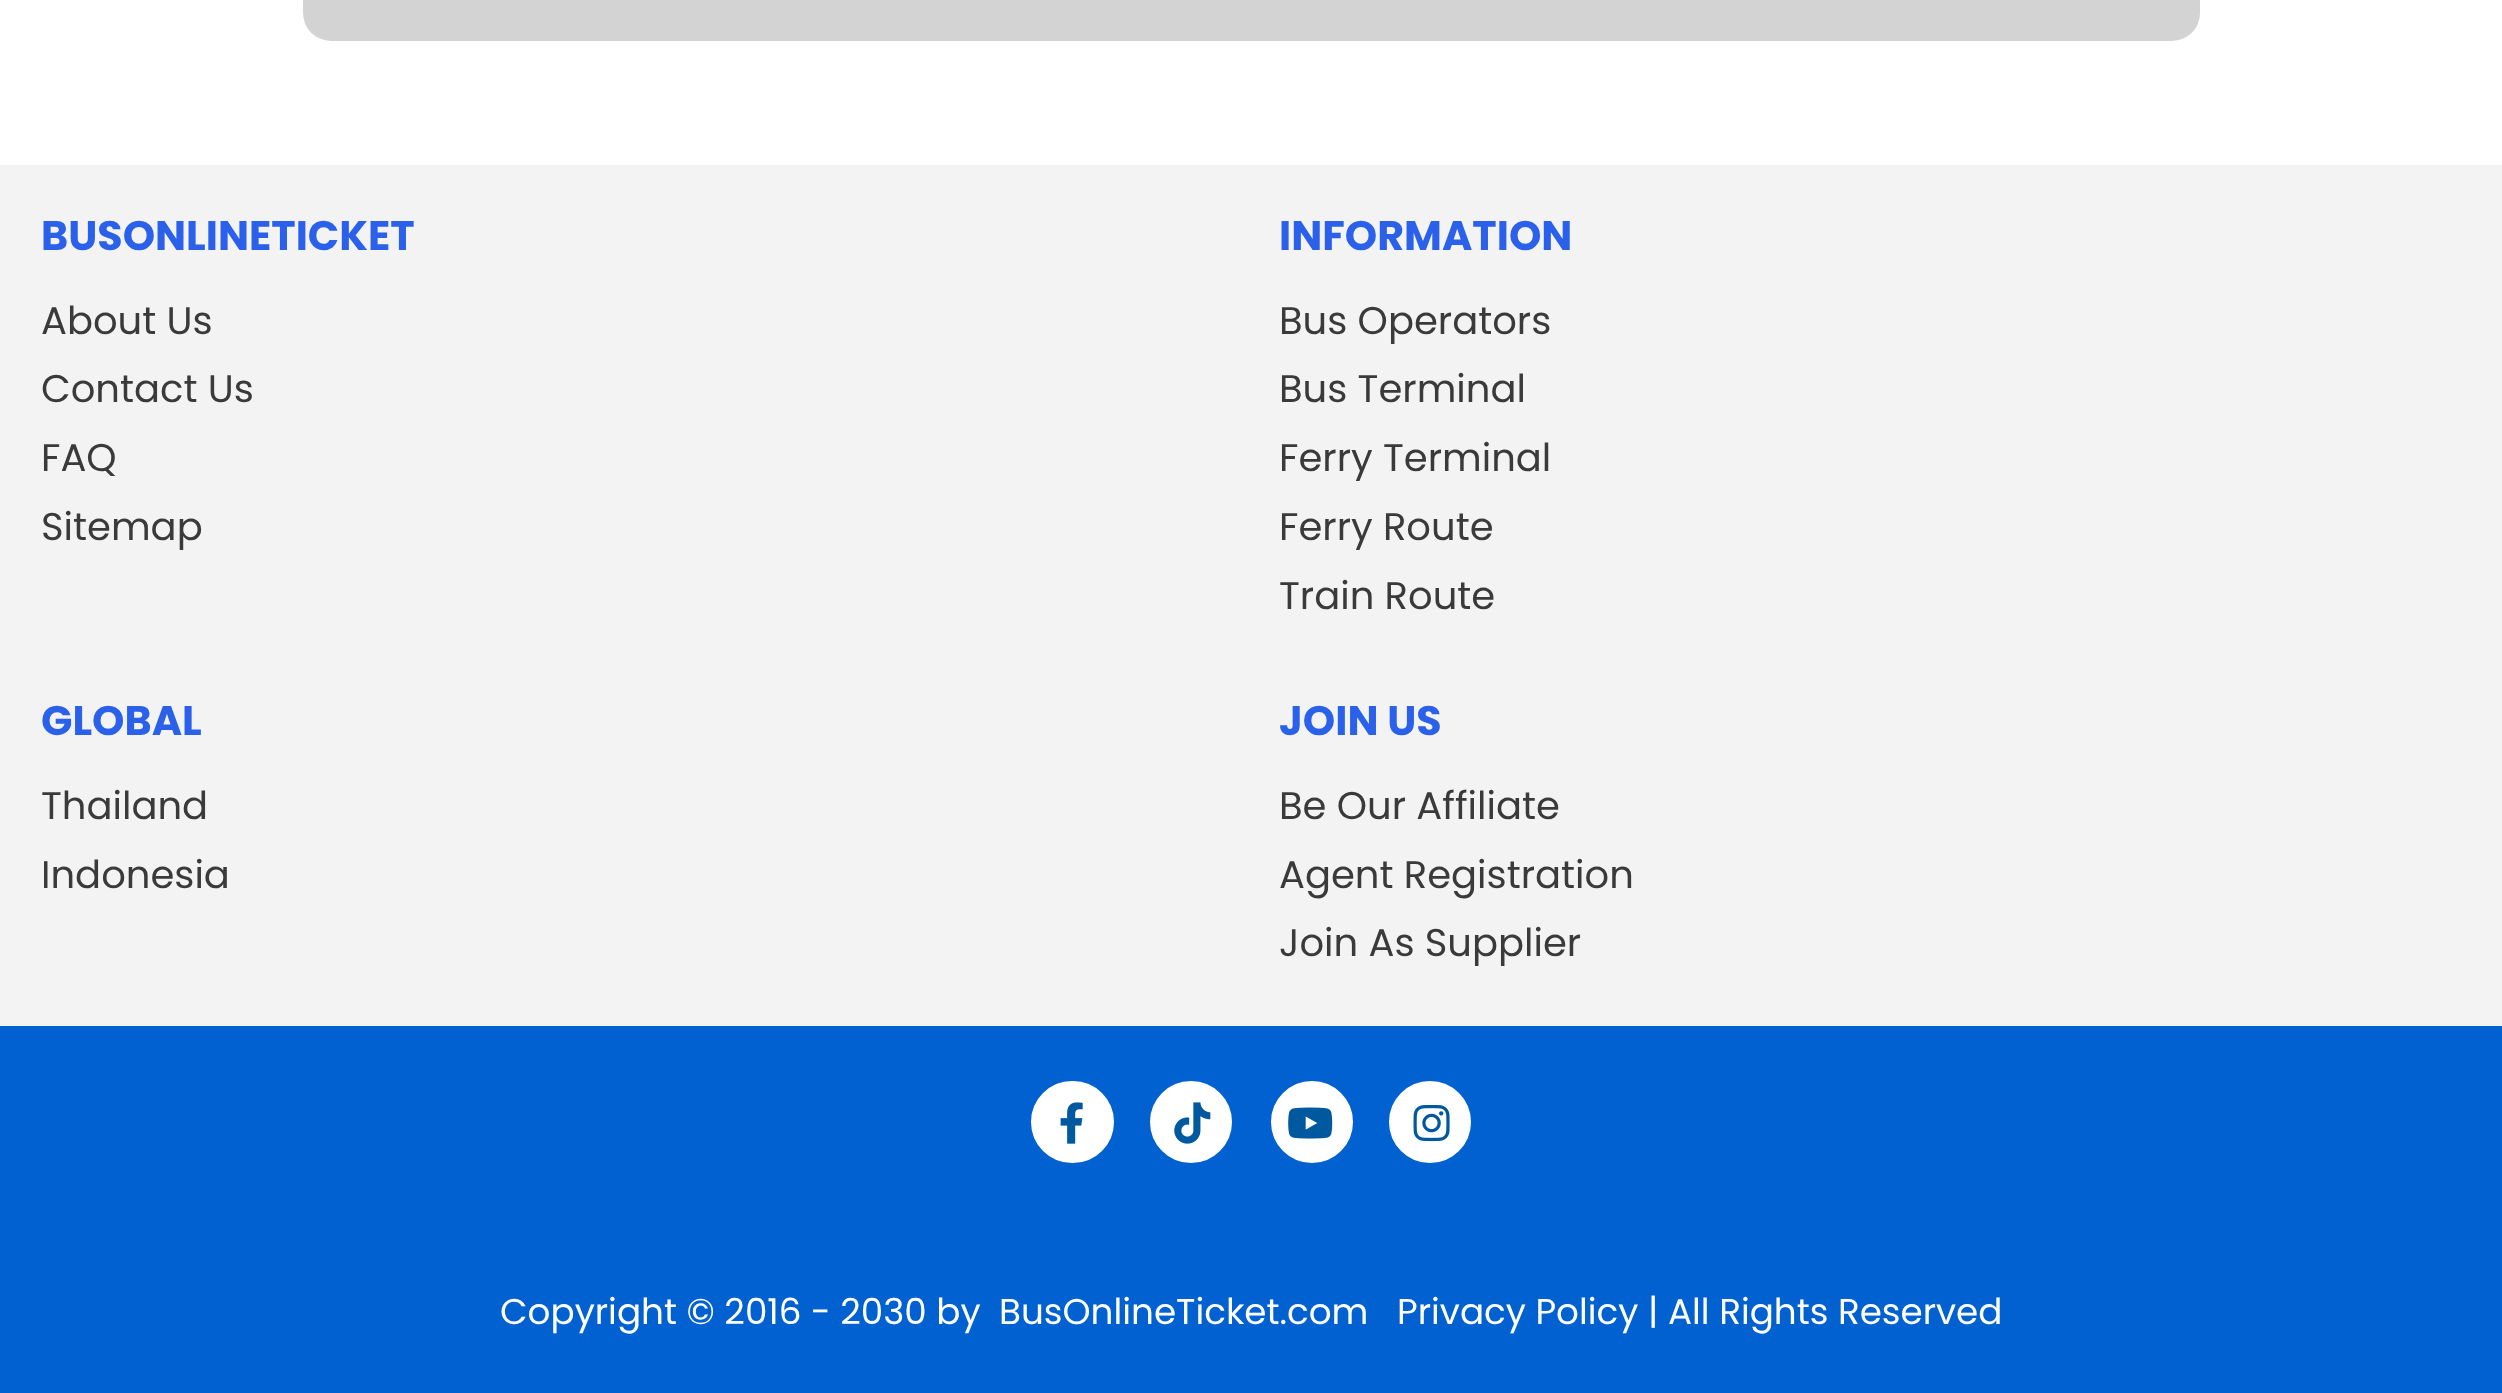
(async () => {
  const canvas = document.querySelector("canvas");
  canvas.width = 2502;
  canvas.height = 1393;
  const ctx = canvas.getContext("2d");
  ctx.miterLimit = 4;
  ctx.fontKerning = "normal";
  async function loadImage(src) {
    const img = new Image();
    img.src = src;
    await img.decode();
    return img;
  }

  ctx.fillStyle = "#ffffff";
  ctx.fillRect(0, 0, 2502, 1393);
  ctx.fillStyle = "#d3d3d3";
  ctx.beginPath();
  ctx.roundRect(303, -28, 1897, 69, 28);
  ctx.fill();
  ctx.fillStyle = "#0161d1";
  ctx.fillRect(0, 1026, 2502, 367);
  ctx.fillStyle = "#f3f3f3";
  ctx.fillRect(0, 165, 2502, 861);
  ctx.fillStyle = "#ffffff";
  ctx.beginPath();
  ctx.roundRect(1034, 1084, 77, 76, 38);
  ctx.fill();
  ctx.strokeStyle = "#ffffff";
  ctx.lineWidth = 6;
  ctx.stroke();
  ctx.drawImage(await loadImage("img/1.png"), 1060, 1102, 23, 42);
  ctx.beginPath();
  ctx.arc(1191, 1122, 38, 0, Math.PI * 2);
  ctx.fill();
  ctx.stroke();
  ctx.drawImage(await loadImage("img/2.png"), 1174, 1102, 37, 42);
  ctx.beginPath();
  ctx.arc(1312, 1122, 38, 0, Math.PI * 2);
  ctx.fill();
  ctx.stroke();
  ctx.drawImage(await loadImage("img/3.png"), 1288, 1107, 45, 32);
  ctx.beginPath();
  ctx.arc(1430, 1122, 38, 0, Math.PI * 2);
  ctx.fill();
  ctx.stroke();
  ctx.drawImage(await loadImage("img/4.png"), 1413, 1105, 37, 37);
  ctx.font = "bold 41.25px Poppins";
  ctx.fillStyle = "#2b61ea";
  ctx.fillText("BUSONLINETICKET", 41, 250);
  ctx.font = "38.5px Poppins";
  ctx.fillStyle = "#3b3a3a";
  for (const [text, x, y] of [
    ["About Us", 41, 334],
    ["Contact Us", 41, 402],
    ["FAQ", 41, 471],
    ["Sitemap", 41, 540],
  ]) {
    ctx.fillText(text, x, y);
  }
  ctx.font = "bold 41.25px Poppins";
  ctx.fillStyle = "#2b61ea";
  ctx.fillText("INFORMATION", 1279, 250);
  ctx.font = "38.5px Poppins";
  ctx.fillStyle = "#3b3a3a";
  for (const [text, x, y] of [
    ["Bus Operators", 1279, 334],
    ["Bus Terminal", 1279, 402],
    ["Ferry Terminal", 1279, 471],
    ["Ferry Route", 1279, 540],
    ["Train Route", 1279, 609],
  ]) {
    ctx.fillText(text, x, y);
  }
  ctx.font = "bold 41.25px Poppins";
  ctx.fillStyle = "#2b61ea";
  ctx.fillText("GLOBAL", 41, 735);
  ctx.font = "38.5px Poppins";
  ctx.fillStyle = "#3b3a3a";
  ctx.fillText("Thailand", 41, 819);
  ctx.fillText("Indonesia", 41, 888);
  ctx.font = "bold 41.25px Poppins";
  ctx.fillStyle = "#2b61ea";
  ctx.fillText("JOIN US", 1279, 735);
  ctx.font = "38.5px Poppins";
  ctx.fillStyle = "#3b3a3a";
  for (const [text, x, y] of [
    ["Be Our Affiliate", 1279, 819],
    ["Agent Registration", 1279, 888],
    ["Join As Supplier", 1279, 956],
  ]) {
    ctx.fillText(text, x, y);
  }
  ctx.font = "35.75px Poppins";
  ctx.fillStyle = "#ffffff";
  for (const [text, x, y] of [
    ["Copyright © 2016 - 2030 by", 500, 1324],
    ["BusOnlineTicket.com", 999, 1324],
    ["Privacy Policy | All Rights Reserved", 1397, 1324],
  ]) {
    ctx.fillText(text, x, y);
  }
})();
